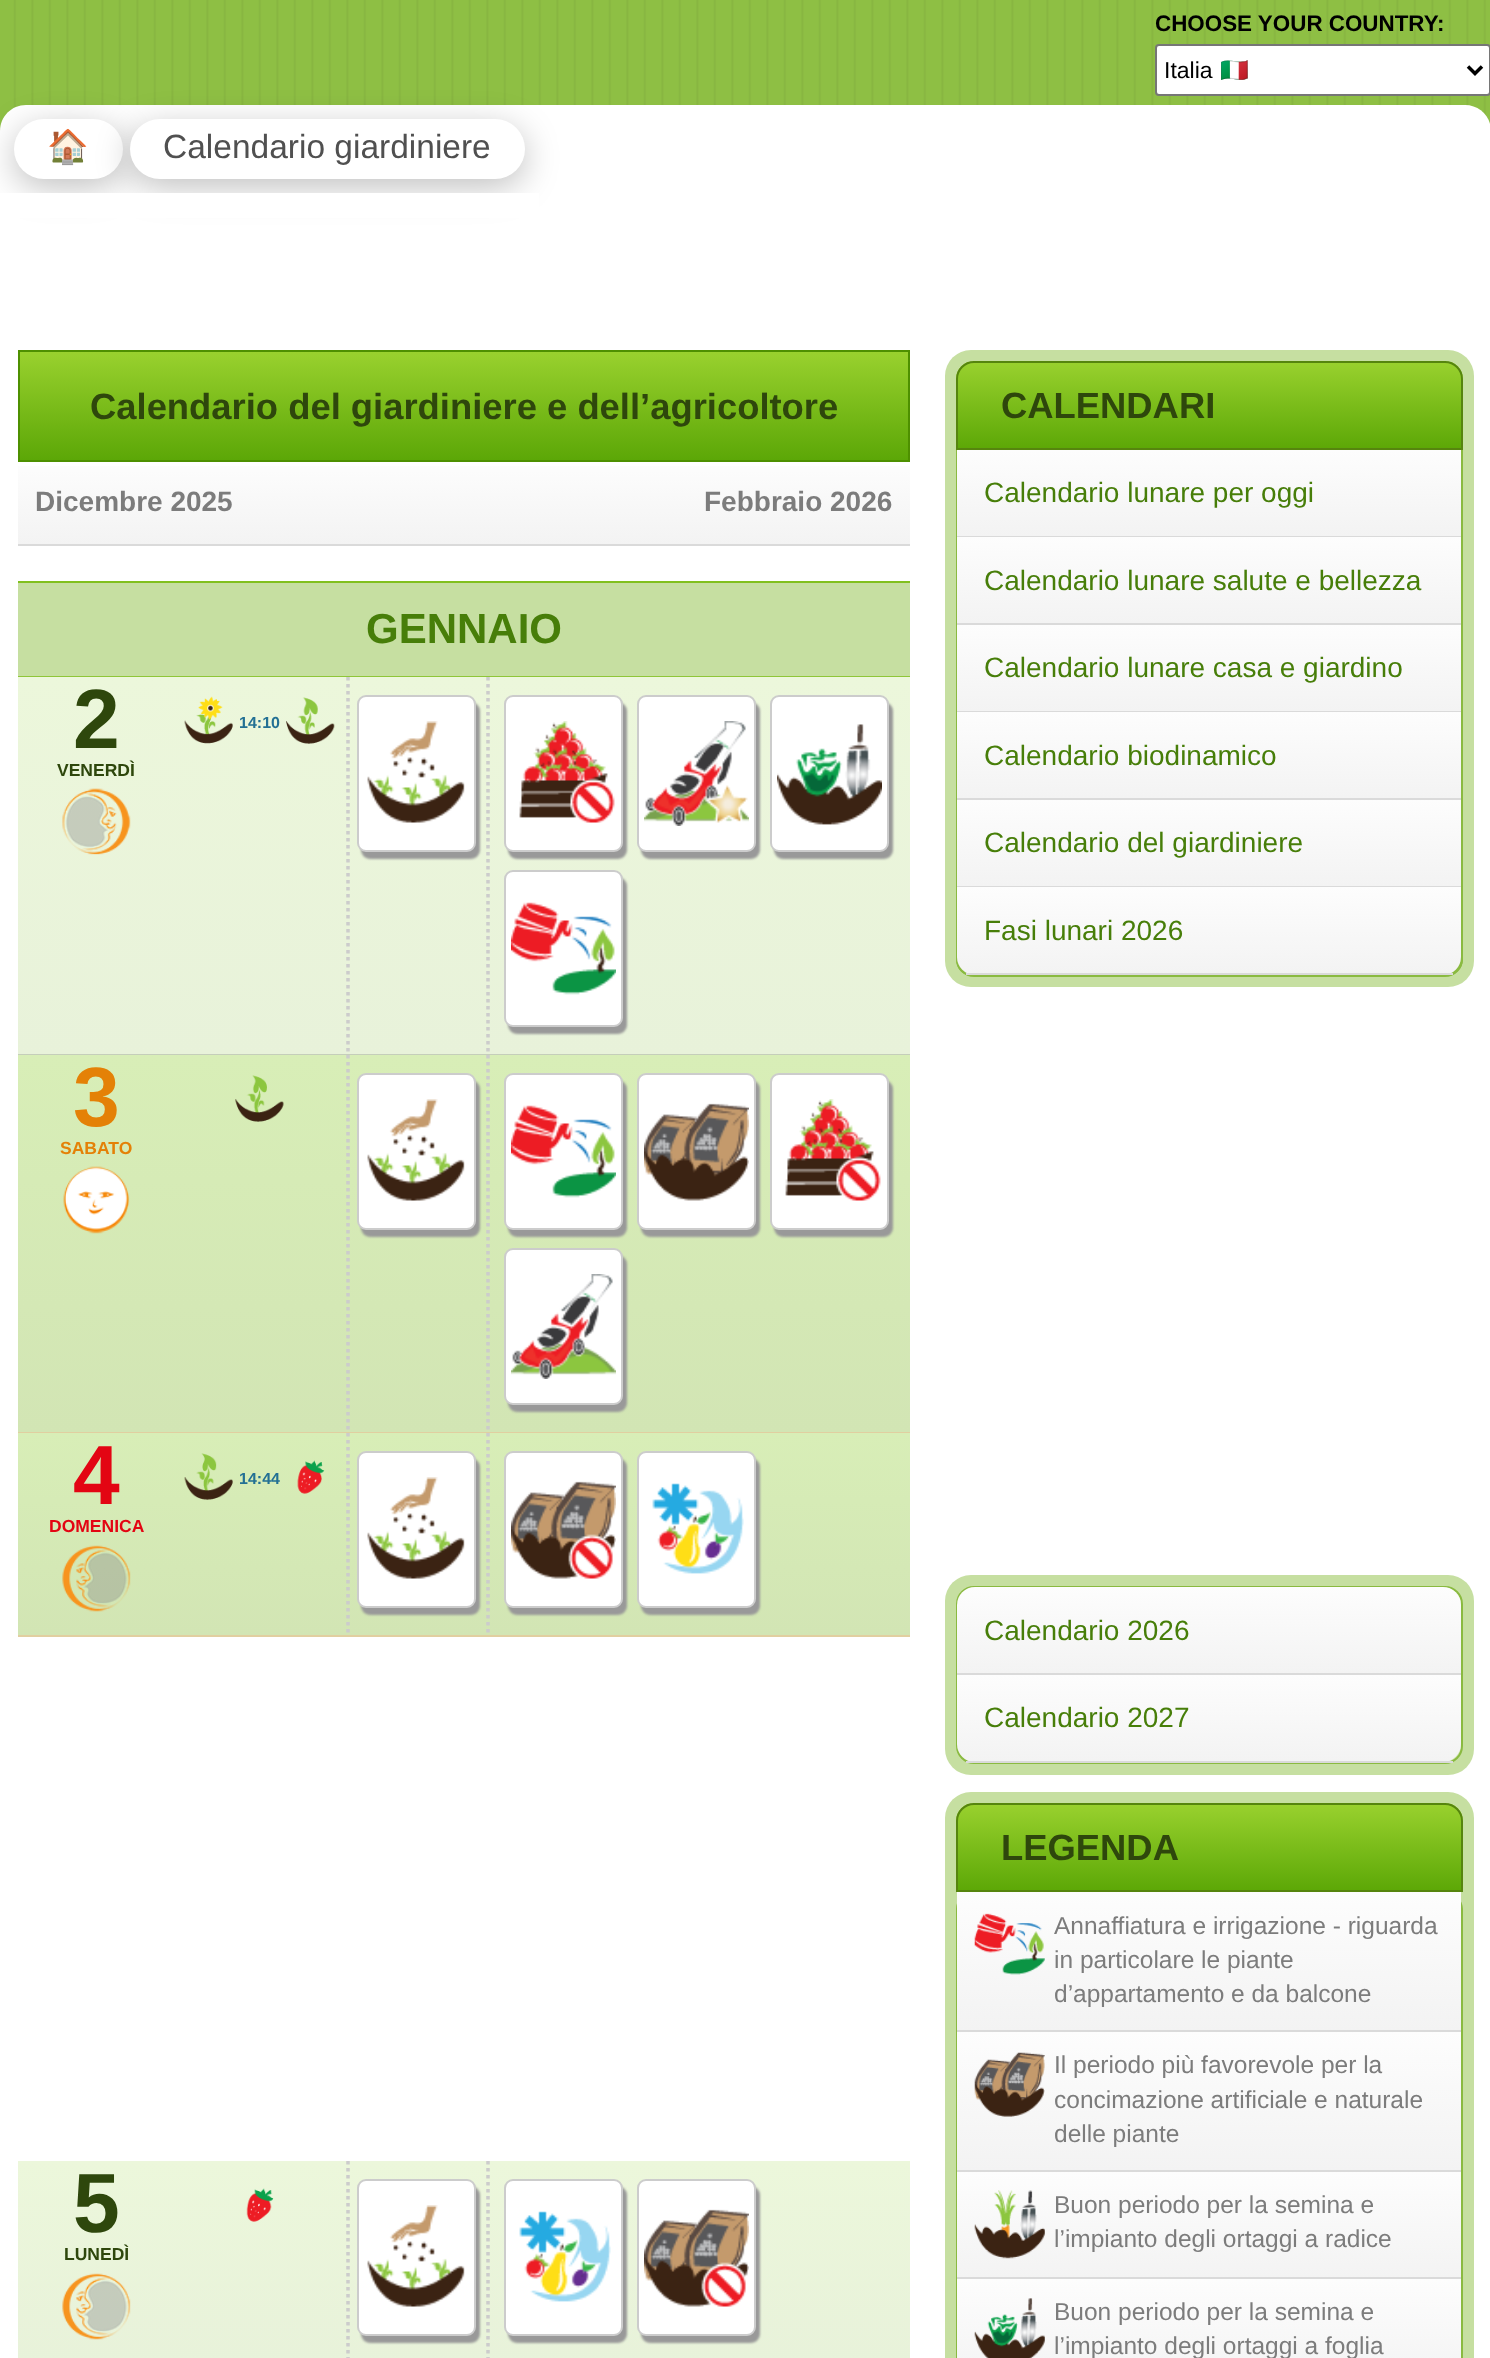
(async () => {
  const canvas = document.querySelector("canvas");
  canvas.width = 1490;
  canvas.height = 2358;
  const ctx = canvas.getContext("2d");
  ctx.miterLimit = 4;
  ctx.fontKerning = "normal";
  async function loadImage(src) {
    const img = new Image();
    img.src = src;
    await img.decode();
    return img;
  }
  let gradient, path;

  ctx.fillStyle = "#ffffff";
  ctx.fillRect(0, 0, 1490, 2358);
  ctx.drawImage(await loadImage("img/1.png"), 0, 0, 1490, 131);
  ctx.beginPath();
  ctx.roundRect(1156, 45, 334, 50, 3);
  ctx.fill();
  ctx.strokeStyle = "#767676";
  ctx.lineWidth = 2;
  ctx.stroke();
  path = new Path2D("M1468 66.5L1475 73.5L1482 66.5");
  ctx.strokeStyle = "#000000";
  ctx.lineWidth = 3.5;
  ctx.stroke(path);
  path = new Path2D("M26 105H1465C1479.5 105 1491 116.5 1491 131V193H0V131C0 116.5 11.5 105 26 105Z");
  ctx.fill(path);
  ctx.fillStyle = "rgba(0, 0, 0, 0.25)";
  ctx.filter = "blur(17.5px)";
  ctx.beginPath();
  ctx.roundRect(14, 128, 109, 59, 29.5);
  ctx.fill();
  ctx.filter = "none";
  ctx.fillStyle = "#ffffff";
  ctx.beginPath();
  ctx.roundRect(14, 119, 109, 60, 30);
  ctx.fill();
  ctx.fillStyle = "rgba(0, 0, 0, 0.25)";
  ctx.filter = "blur(17.5px)";
  ctx.beginPath();
  ctx.roundRect(130, 128, 395, 59, 29.5);
  ctx.fill();
  ctx.filter = "none";
  ctx.fillStyle = "#ffffff";
  ctx.beginPath();
  ctx.roundRect(130, 119, 395, 60, 30);
  ctx.fill();
  ctx.fillRect(0, 193, 539, 25);
  gradient = ctx.createLinearGradient(464, 352, 464, 460);
  gradient.addColorStop(0, "#99d12e");
  gradient.addColorStop(1, "#5ca707");
  ctx.fillStyle = gradient;
  ctx.fillRect(20, 352, 888, 108);
  ctx.strokeStyle = "#4e9000";
  ctx.lineWidth = 2;
  ctx.strokeRect(19, 351, 890, 110);
  gradient = ctx.createLinearGradient(464, 462, 464, 544);
  gradient.addColorStop(0, "#fdfdfd");
  gradient.addColorStop(1, "#f3f3f3");
  ctx.fillStyle = gradient;
  ctx.fillRect(18, 466, 892, 78);
  for (const [x, y, w, h, color] of [
    [18, 544, 892, 2, "#dadada"],
    [18, 583, 892, 93, "#c6dfa1"],
    [18, 581, 892, 2, "#81c01e"],
    [18, 676, 892, 1, "#8fc638"],
  ]) {
    ctx.fillStyle = color;
    ctx.fillRect(x, y, w, h);
  }
  gradient = ctx.createLinearGradient(464, 677, 464, 1054);
  gradient.addColorStop(0, "#ecf7db");
  gradient.addColorStop(1, "#e8f2da");
  ctx.fillStyle = gradient;
  ctx.fillRect(18, 677, 892, 377);
  ctx.fillStyle = "#c5ceba";
  ctx.fillRect(18, 1054, 892, 1);
  path = new Path2D("M348 677V1053.5");
  ctx.strokeStyle = "#cccccc";
  ctx.lineWidth = 3.5;
  ctx.setLineDash([3.5, 3.5]);
  ctx.stroke(path);
  ctx.drawImage(await loadImage("img/2.png"), 62, 788, 69, 67);
  ctx.drawImage(await loadImage("img/3.png"), 184, 696, 49, 48);
  ctx.drawImage(await loadImage("img/4.png"), 286, 697, 49, 47);
  path = new Path2D("M488 677V1053.5");
  ctx.stroke(path);
  ctx.fillStyle = "#999999";
  ctx.filter = "blur(1px)";
  ctx.beginPath();
  ctx.roundRect(361, 702, 119, 157, 9);
  ctx.fill();
  ctx.filter = "none";
  ctx.fillStyle = "#ffffff";
  ctx.beginPath();
  ctx.roundRect(358, 696, 117, 155, 8);
  ctx.fill();
  ctx.lineWidth = 2;
  ctx.setLineDash([]);
  ctx.stroke();
  ctx.drawImage(await loadImage("img/5.png"), 367, 721, 98, 102);
  ctx.fillStyle = "#999999";
  ctx.filter = "blur(1px)";
  ctx.beginPath();
  ctx.roundRect(508, 702, 119, 157, 9);
  ctx.fill();
  ctx.filter = "none";
  ctx.fillStyle = "#ffffff";
  ctx.beginPath();
  ctx.roundRect(505, 696, 117, 155, 8);
  ctx.fill();
  ctx.stroke();
  ctx.drawImage(await loadImage("img/6.png"), 519, 721, 96, 102);
  ctx.fillStyle = "#999999";
  ctx.filter = "blur(1px)";
  ctx.beginPath();
  ctx.roundRect(641, 702, 119, 157, 9);
  ctx.fill();
  ctx.filter = "none";
  ctx.fillStyle = "#ffffff";
  ctx.beginPath();
  ctx.roundRect(638, 696, 117, 155, 8);
  ctx.fill();
  ctx.stroke();
  ctx.drawImage(await loadImage("img/7.png"), 644, 721, 105, 105);
  ctx.fillStyle = "#999999";
  ctx.filter = "blur(1px)";
  ctx.beginPath();
  ctx.roundRect(774, 702, 119, 157, 9);
  ctx.fill();
  ctx.filter = "none";
  ctx.fillStyle = "#ffffff";
  ctx.beginPath();
  ctx.roundRect(771, 696, 117, 155, 8);
  ctx.fill();
  ctx.stroke();
  ctx.drawImage(await loadImage("img/8.png"), 777, 724, 105, 101);
  ctx.fillStyle = "#999999";
  ctx.filter = "blur(1px)";
  ctx.beginPath();
  ctx.roundRect(508, 877, 119, 157, 9);
  ctx.fill();
  ctx.filter = "none";
  ctx.fillStyle = "#ffffff";
  ctx.beginPath();
  ctx.roundRect(505, 871, 117, 155, 8);
  ctx.fill();
  ctx.stroke();
  ctx.drawImage(await loadImage("img/9.png"), 511, 902, 105, 93);
  gradient = ctx.createLinearGradient(464, 1055, 464, 1432);
  gradient.addColorStop(0, "#d8eeb7");
  gradient.addColorStop(1, "#d2e5b4");
  ctx.fillStyle = gradient;
  ctx.fillRect(18, 1055, 892, 377);
  ctx.fillStyle = "#e1cfa0";
  ctx.fillRect(18, 1432, 892, 1);
  path = new Path2D("M348 1055V1431.5");
  ctx.lineWidth = 3.5;
  ctx.setLineDash([3.5, 3.5]);
  ctx.stroke(path);
  ctx.drawImage(await loadImage("img/10.png"), 63, 1166, 67, 68);
  ctx.drawImage(await loadImage("img/11.png"), 235, 1075, 49, 47);
  path = new Path2D("M488 1055V1431.5");
  ctx.stroke(path);
  ctx.fillStyle = "#999999";
  ctx.filter = "blur(1px)";
  ctx.beginPath();
  ctx.roundRect(361, 1080, 119, 157, 9);
  ctx.fill();
  ctx.filter = "none";
  ctx.fillStyle = "#ffffff";
  ctx.beginPath();
  ctx.roundRect(358, 1074, 117, 155, 8);
  ctx.fill();
  ctx.lineWidth = 2;
  ctx.setLineDash([]);
  ctx.stroke();
  ctx.drawImage(await loadImage("img/5.png"), 367, 1099, 98, 102);
  ctx.fillStyle = "#999999";
  ctx.filter = "blur(1px)";
  ctx.beginPath();
  ctx.roundRect(508, 1080, 119, 157, 9);
  ctx.fill();
  ctx.filter = "none";
  ctx.fillStyle = "#ffffff";
  ctx.beginPath();
  ctx.roundRect(505, 1074, 117, 155, 8);
  ctx.fill();
  ctx.stroke();
  ctx.drawImage(await loadImage("img/9.png"), 511, 1105, 105, 93);
  ctx.fillStyle = "#999999";
  ctx.filter = "blur(1px)";
  ctx.beginPath();
  ctx.roundRect(641, 1080, 119, 157, 9);
  ctx.fill();
  ctx.filter = "none";
  ctx.fillStyle = "#ffffff";
  ctx.beginPath();
  ctx.roundRect(638, 1074, 117, 155, 8);
  ctx.fill();
  ctx.stroke();
  ctx.drawImage(await loadImage("img/12.png"), 644, 1103, 105, 98);
  ctx.fillStyle = "#999999";
  ctx.filter = "blur(1px)";
  ctx.beginPath();
  ctx.roundRect(774, 1080, 119, 157, 9);
  ctx.fill();
  ctx.filter = "none";
  ctx.fillStyle = "#ffffff";
  ctx.beginPath();
  ctx.roundRect(771, 1074, 117, 155, 8);
  ctx.fill();
  ctx.stroke();
  ctx.drawImage(await loadImage("img/6.png"), 785, 1099, 96, 102);
  ctx.fillStyle = "#999999";
  ctx.filter = "blur(1px)";
  ctx.beginPath();
  ctx.roundRect(508, 1255, 119, 157, 9);
  ctx.fill();
  ctx.filter = "none";
  ctx.fillStyle = "#ffffff";
  ctx.beginPath();
  ctx.roundRect(505, 1249, 117, 155, 8);
  ctx.fill();
  ctx.stroke();
  ctx.drawImage(await loadImage("img/13.png"), 511, 1274, 105, 105);
  gradient = ctx.createLinearGradient(464, 1433, 464, 1635);
  gradient.addColorStop(0, "#d8eeb7");
  gradient.addColorStop(1, "#d2e5b4");
  ctx.fillStyle = gradient;
  ctx.fillRect(18, 1433, 892, 202);
  ctx.fillStyle = "#e1cfa0";
  ctx.fillRect(18, 1635, 892, 2);
  path = new Path2D("M348 1433V1634.5");
  ctx.lineWidth = 3.5;
  ctx.setLineDash([3.5, 3.5]);
  ctx.stroke(path);
  ctx.drawImage(await loadImage("img/14.png"), 62, 1545, 69, 67);
  ctx.drawImage(await loadImage("img/15.png"), 184, 1453, 49, 47);
  ctx.drawImage(await loadImage("img/16.png"), 297, 1460, 28, 34);
  path = new Path2D("M488 1433V1634.5");
  ctx.stroke(path);
  ctx.fillStyle = "#999999";
  ctx.filter = "blur(1px)";
  ctx.beginPath();
  ctx.roundRect(361, 1458, 119, 157, 9);
  ctx.fill();
  ctx.filter = "none";
  ctx.fillStyle = "#ffffff";
  ctx.beginPath();
  ctx.roundRect(358, 1452, 117, 155, 8);
  ctx.fill();
  ctx.lineWidth = 2;
  ctx.setLineDash([]);
  ctx.stroke();
  ctx.drawImage(await loadImage("img/5.png"), 367, 1477, 98, 102);
  ctx.fillStyle = "#999999";
  ctx.filter = "blur(1px)";
  ctx.beginPath();
  ctx.roundRect(508, 1458, 119, 157, 9);
  ctx.fill();
  ctx.filter = "none";
  ctx.fillStyle = "#ffffff";
  ctx.beginPath();
  ctx.roundRect(505, 1452, 117, 155, 8);
  ctx.fill();
  ctx.stroke();
  ctx.drawImage(await loadImage("img/17.png"), 511, 1481, 105, 98);
  ctx.fillStyle = "#999999";
  ctx.filter = "blur(1px)";
  ctx.beginPath();
  ctx.roundRect(641, 1458, 119, 157, 9);
  ctx.fill();
  ctx.filter = "none";
  ctx.fillStyle = "#ffffff";
  ctx.beginPath();
  ctx.roundRect(638, 1452, 117, 155, 8);
  ctx.fill();
  ctx.stroke();
  ctx.drawImage(await loadImage("img/18.png"), 652, 1483, 92, 91);
  gradient = ctx.createLinearGradient(464, 2161, 464, 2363);
  gradient.addColorStop(0, "#ecf7db");
  gradient.addColorStop(1, "#e8f2da");
  ctx.fillStyle = gradient;
  ctx.fillRect(18, 2161, 892, 197);
  path = new Path2D("M348 2161V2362.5");
  ctx.lineWidth = 3.5;
  ctx.setLineDash([3.5, 3.5]);
  ctx.stroke(path);
  ctx.drawImage(await loadImage("img/19.png"), 62, 2273, 69, 67);
  ctx.drawImage(await loadImage("img/20.png"), 246, 2188, 28, 34);
  path = new Path2D("M488 2161V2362.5");
  ctx.stroke(path);
  ctx.fillStyle = "#999999";
  ctx.filter = "blur(1px)";
  ctx.beginPath();
  ctx.roundRect(361, 2186, 119, 157, 9);
  ctx.fill();
  ctx.filter = "none";
  ctx.fillStyle = "#ffffff";
  ctx.beginPath();
  ctx.roundRect(358, 2180, 117, 155, 8);
  ctx.fill();
  ctx.lineWidth = 2;
  ctx.setLineDash([]);
  ctx.stroke();
  ctx.drawImage(await loadImage("img/5.png"), 367, 2205, 98, 102);
  ctx.fillStyle = "#999999";
  ctx.filter = "blur(1px)";
  ctx.beginPath();
  ctx.roundRect(508, 2186, 119, 157, 9);
  ctx.fill();
  ctx.filter = "none";
  ctx.fillStyle = "#ffffff";
  ctx.beginPath();
  ctx.roundRect(505, 2180, 117, 155, 8);
  ctx.fill();
  ctx.stroke();
  ctx.drawImage(await loadImage("img/21.png"), 519, 2211, 92, 91);
  ctx.fillStyle = "#999999";
  ctx.filter = "blur(1px)";
  ctx.beginPath();
  ctx.roundRect(641, 2186, 119, 157, 9);
  ctx.fill();
  ctx.filter = "none";
  ctx.fillStyle = "#ffffff";
  ctx.beginPath();
  ctx.roundRect(638, 2180, 117, 155, 8);
  ctx.fill();
  ctx.stroke();
  ctx.drawImage(await loadImage("img/22.png"), 644, 2209, 105, 98);
  ctx.fillStyle = "#c6dfa1";
  ctx.beginPath();
  ctx.roundRect(945, 350, 529, 637, 26);
  ctx.fill();
  ctx.save();
  ctx.beginPath();
  ctx.roundRect(956, 361, 507, 89, [18, 18, 0, 0]);
  ctx.clip();
  gradient = ctx.createLinearGradient(1209, 362, 1209, 448);
  gradient.addColorStop(0, "#99d12e");
  gradient.addColorStop(1, "#5da807");
  ctx.fillStyle = gradient;
  ctx.fillRect(956, 362, 507, 86);
  ctx.restore();
  ctx.beginPath();
  ctx.roundRect(957, 362, 505, 87, [17, 17, 0, 0]);
  ctx.strokeStyle = "#56850e";
  ctx.stroke();
  ctx.fillStyle = "#8aba40";
  ctx.beginPath();
  ctx.roundRect(956, 450, 507, 527, [0, 0, 18, 18]);
  ctx.fill();
  path = new Path2D("M956 450H1463V959C1463 969 1455 976 1446 976H973C963 976 956 969 956 959ZM957 450H1461V959C1461 968 1454 975 1446 975H973C964 975 957 968 957 959Z");
  ctx.fill(path, "evenodd");
  gradient = ctx.createLinearGradient(1209, 450, 1209, 536);
  gradient.addColorStop(0, "#fdfdfd");
  gradient.addColorStop(1, "#f3f3f3");
  ctx.fillStyle = gradient;
  ctx.fillRect(957, 450, 504, 86);
  ctx.fillStyle = "#dadada";
  ctx.fillRect(957, 536, 504, 1);
  gradient = ctx.createLinearGradient(1209, 537, 1209, 623);
  gradient.addColorStop(0, "#fdfdfd");
  gradient.addColorStop(1, "#f3f3f3");
  ctx.fillStyle = gradient;
  ctx.fillRect(957, 537, 504, 86);
  ctx.fillStyle = "#dadada";
  ctx.fillRect(957, 623, 504, 2);
  gradient = ctx.createLinearGradient(1209, 625, 1209, 711);
  gradient.addColorStop(0, "#fdfdfd");
  gradient.addColorStop(1, "#f3f3f3");
  ctx.fillStyle = gradient;
  ctx.fillRect(957, 625, 504, 86);
  ctx.fillStyle = "#dadada";
  ctx.fillRect(957, 711, 504, 1);
  gradient = ctx.createLinearGradient(1209, 712, 1209, 798);
  gradient.addColorStop(0, "#fdfdfd");
  gradient.addColorStop(1, "#f3f3f3");
  ctx.fillStyle = gradient;
  ctx.fillRect(957, 712, 504, 86);
  ctx.fillStyle = "#dadada";
  ctx.fillRect(957, 798, 504, 2);
  gradient = ctx.createLinearGradient(1209, 800, 1209, 886);
  gradient.addColorStop(0, "#fdfdfd");
  gradient.addColorStop(1, "#f3f3f3");
  ctx.fillStyle = gradient;
  ctx.fillRect(957, 800, 504, 86);
  ctx.fillStyle = "#dadada";
  ctx.fillRect(957, 886, 504, 1);
  ctx.save();
  ctx.beginPath();
  ctx.roundRect(957, 887, 504, 88, [0, 0, 18, 18]);
  ctx.clip();
  gradient = ctx.createLinearGradient(1209, 887, 1209, 973);
  gradient.addColorStop(0, "#fdfdfd");
  gradient.addColorStop(1, "#f3f3f3");
  ctx.fillStyle = gradient;
  ctx.fillRect(957, 887, 504, 86);
  ctx.restore();
  ctx.fillRect(966, 973, 487, 2);
  ctx.fillStyle = "#c6dfa1";
  ctx.beginPath();
  ctx.roundRect(945, 1575, 529, 200, 26);
  ctx.fill();
  ctx.beginPath();
  ctx.roundRect(957, 1587, 505, 176, 17);
  ctx.strokeStyle = "#8aba40";
  ctx.stroke();
  gradient = ctx.createLinearGradient(1209, 1587, 1209, 1673);
  gradient.addColorStop(0, "#fdfdfd");
  gradient.addColorStop(1, "#f3f3f3");
  ctx.fillStyle = gradient;
  ctx.beginPath();
  ctx.roundRect(957, 1587, 504, 86, [18, 18, 0, 0]);
  ctx.fill();
  ctx.fillStyle = "#dadada";
  ctx.fillRect(957, 1673, 504, 2);
  ctx.save();
  ctx.beginPath();
  ctx.roundRect(957, 1675, 504, 87, [0, 0, 18, 18]);
  ctx.clip();
  gradient = ctx.createLinearGradient(1209, 1675, 1209, 1761);
  gradient.addColorStop(0, "#fdfdfd");
  gradient.addColorStop(1, "#f3f3f3");
  ctx.fillStyle = gradient;
  ctx.fillRect(957, 1675, 504, 86);
  ctx.restore();
  ctx.fillRect(966, 1761, 487, 2);
  ctx.fillStyle = "#c6dfa1";
  ctx.beginPath();
  ctx.roundRect(945, 1792, 529, 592, 26);
  ctx.fill();
  ctx.save();
  ctx.beginPath();
  ctx.roundRect(956, 1803, 507, 89, [18, 18, 0, 0]);
  ctx.clip();
  gradient = ctx.createLinearGradient(1209, 1804, 1209, 1890);
  gradient.addColorStop(0, "#99d12e");
  gradient.addColorStop(1, "#5da807");
  ctx.fillStyle = gradient;
  ctx.fillRect(956, 1804, 507, 86);
  ctx.restore();
  ctx.beginPath();
  ctx.roundRect(957, 1804, 505, 87, [17, 17, 0, 0]);
  ctx.strokeStyle = "#56850e";
  ctx.stroke();
  ctx.fillStyle = "#8aba40";
  path = new Path2D("M973 1892H1446C1455 1892 1463 1900 1463 1909V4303C1463 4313 1455 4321 1446 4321H973C963 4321 956 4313 956 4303V1909C956 1900 963 1892 973 1892ZM973 1892H1446C1454 1892 1461 1900 1461 1909V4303C1461 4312 1454 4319 1446 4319H973C964 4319 957 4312 957 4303V1909C957 1900 964 1892 973 1892Z");
  ctx.fill(path, "evenodd");
  gradient = ctx.createLinearGradient(1209, 1892, 1209, 2030);
  gradient.addColorStop(0, "#fdfdfd");
  gradient.addColorStop(1, "#f3f3f3");
  ctx.fillStyle = gradient;
  ctx.fillRect(957, 1892, 504, 138);
  ctx.fillStyle = "#dadada";
  ctx.fillRect(957, 2030, 504, 2);
  ctx.drawImage(await loadImage("img/23.png"), 974, 1913, 71, 62);
  gradient = ctx.createLinearGradient(1209, 2032, 1209, 2170);
  gradient.addColorStop(0, "#fdfdfd");
  gradient.addColorStop(1, "#f3f3f3");
  ctx.fillStyle = gradient;
  ctx.fillRect(957, 2032, 504, 138);
  ctx.fillStyle = "#dadada";
  ctx.fillRect(957, 2170, 504, 2);
  ctx.drawImage(await loadImage("img/24.png"), 974, 2052, 71, 65);
  gradient = ctx.createLinearGradient(1209, 2172, 1209, 2277);
  gradient.addColorStop(0, "#fdfdfd");
  gradient.addColorStop(1, "#f3f3f3");
  ctx.fillStyle = gradient;
  ctx.fillRect(957, 2172, 504, 105);
  ctx.fillStyle = "#dadada";
  ctx.fillRect(957, 2277, 504, 2);
  ctx.drawImage(await loadImage("img/25.png"), 974, 2190, 71, 69);
  gradient = ctx.createLinearGradient(1209, 2279, 1209, 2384);
  gradient.addColorStop(0, "#fdfdfd");
  gradient.addColorStop(1, "#f3f3f3");
  ctx.fillStyle = gradient;
  ctx.fillRect(957, 2279, 504, 79);
  ctx.drawImage(await loadImage("img/26.png"), 974, 2298, 71, 60);
  ctx.font = "bold 22.4px Liberation Sans";
  ctx.fillStyle = "#000000";
  ctx.fillText("CHOOSE YOUR COUNTRY:", 1155, 31);
  ctx.font = "23px Liberation Sans";
  ctx.fillText("Italia", 1164, 78);
  ctx.font = "23px Noto Color Emoji";
  ctx.fillText("🇮🇹", 1220, 78);
  ctx.font = "bold 33.5px Noto Color Emoji";
  ctx.fillStyle = "#505050";
  ctx.fillText("🏠", 47, 158);
  ctx.font = "33.5px Liberation Sans";
  ctx.fillText("Calendario giardiniere", 163, 158);
  ctx.font = "bold 36.4px Liberation Sans";
  ctx.fillStyle = "#2e470c";
  ctx.fillText("Calendario del giardiniere e dell’agricoltore", 90, 419);
  ctx.font = "bold 28px Liberation Sans";
  ctx.fillStyle = "#7c7c7c";
  ctx.fillText("Dicembre 2025", 35, 511);
  ctx.fillText("Febbraio 2026", 704, 511);
  ctx.font = "bold 42px Liberation Sans";
  ctx.fillStyle = "#477e09";
  ctx.fillText("GENNAIO", 366, 643);
  ctx.font = "bold 84px Liberation Sans";
  ctx.fillStyle = "#2e470c";
  ctx.fillText("2", 73, 748);
  ctx.font = "bold 17.5px Liberation Sans";
  ctx.fillText("VENERDÌ", 57, 776);
  ctx.font = "bold 16px Liberation Sans";
  ctx.fillStyle = "#237094";
  ctx.fillText("14:10", 239, 728);
  ctx.font = "bold 84px Liberation Sans";
  ctx.fillStyle = "#e48107";
  ctx.fillText("3", 73, 1126);
  ctx.font = "bold 17.5px Liberation Sans";
  ctx.fillText("SABATO", 60, 1154);
  ctx.font = "bold 84px Liberation Sans";
  ctx.fillStyle = "#e30513";
  ctx.fillText("4", 73, 1504);
  ctx.font = "bold 17.5px Liberation Sans";
  ctx.fillText("DOMENICA", 49, 1532);
  ctx.font = "bold 16px Liberation Sans";
  ctx.fillStyle = "#237094";
  ctx.fillText("14:44", 239, 1484);
  ctx.font = "bold 84px Liberation Sans";
  ctx.fillStyle = "#2e470c";
  ctx.fillText("5", 73, 2232);
  ctx.font = "bold 17.5px Liberation Sans";
  ctx.fillText("LUNEDÌ", 64, 2260);
  ctx.font = "bold 36.4px Liberation Sans";
  ctx.fillText("CALENDARI", 1001, 418);
  ctx.font = "28px Liberation Sans";
  ctx.fillStyle = "#477e09";
  for (const [text, x, y] of [
    ["Calendario lunare per oggi", 984, 502],
    ["Calendario lunare salute e bellezza", 984, 590],
    ["Calendario lunare casa e giardino", 984, 677],
    ["Calendario biodinamico", 984, 765],
    ["Calendario del giardiniere", 984, 852],
    ["Fasi lunari 2026", 984, 940],
    ["Calendario 2026", 984, 1640],
    ["Calendario 2027", 984, 1727],
  ]) {
    ctx.fillText(text, x, y);
  }
  ctx.font = "bold 36.4px Liberation Sans";
  ctx.fillStyle = "#2e470c";
  ctx.fillText("LEGENDA", 1001, 1860);
  ctx.font = "24.5px Liberation Sans";
  ctx.fillStyle = "#7c7c7c";
  for (const [text, x, y] of [
    ["Annaffiatura e irrigazione - riguarda", 1054, 1934],
    ["in particolare le piante", 1054, 1968],
    ["d’appartamento e da balcone", 1054, 2002],
    ["Il periodo più favorevole per la", 1054, 2073],
    ["concimazione artificiale e naturale", 1054, 2108],
    ["delle piante", 1054, 2142],
    ["Buon periodo per la semina e", 1054, 2213],
    ["l’impianto degli ortaggi a radice", 1054, 2247],
    ["Buon periodo per la semina e", 1054, 2320],
    ["l’impianto degli ortaggi a foglia", 1054, 2354],
  ]) {
    ctx.fillText(text, x, y);
  }
})();
